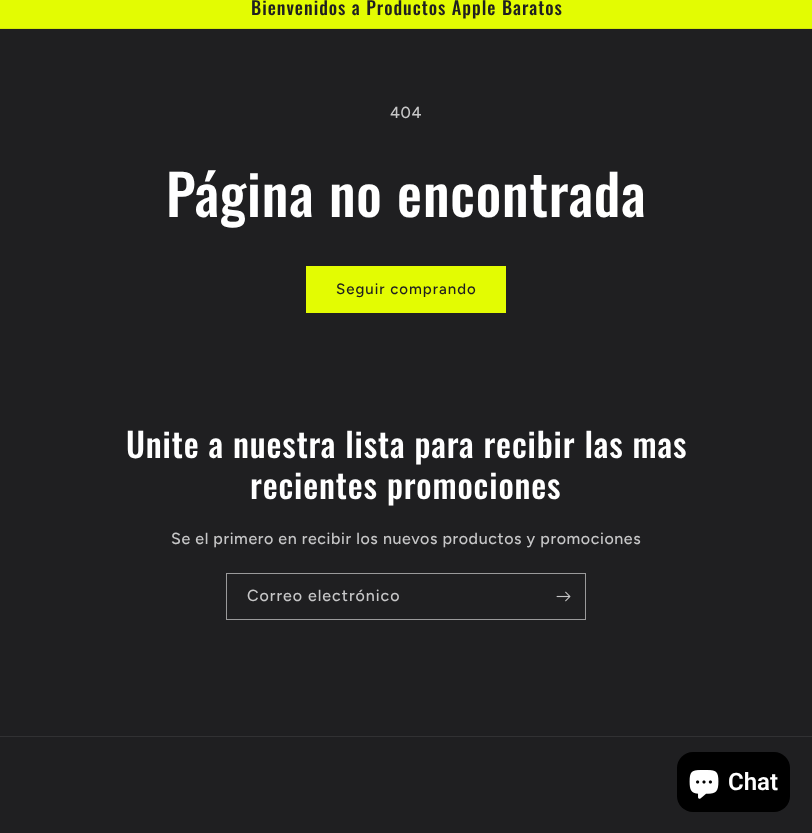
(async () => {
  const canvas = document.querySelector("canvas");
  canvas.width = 812;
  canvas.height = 833;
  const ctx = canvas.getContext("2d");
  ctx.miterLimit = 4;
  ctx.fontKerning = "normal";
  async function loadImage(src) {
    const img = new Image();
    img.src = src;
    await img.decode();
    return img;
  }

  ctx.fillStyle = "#1f1f21";
  ctx.fillRect(0, 0, 812, 833);
  for (const [x, y, w, h, color] of [
    [0, 0, 812, 28, "#e3fc02"],
    [0, 28, 812, 1, "#d3ea04"],
    [306, 266, 200, 47, "#e3fc02"],
  ]) {
    ctx.fillStyle = color;
    ctx.fillRect(x, y, w, h);
  }
  ctx.strokeStyle = "#9a9a9b";
  ctx.strokeRect(226.5, 573.5, 359, 46);
  ctx.drawImage(await loadImage("img/1.png"), 556, 591, 15, 11);
  ctx.fillStyle = "#313133";
  ctx.fillRect(0, 736, 812, 1);
  ctx.fillStyle = "#000000";
  ctx.beginPath();
  ctx.roundRect(677, 752, 113, 60, 16);
  ctx.fill();
  ctx.drawImage(await loadImage("img/2.png"), 689, 770, 30, 29);
  ctx.letterSpacing = "1px";
  ctx.font = "500 18.25px Oswald";
  ctx.fillStyle = "#1f1f21";
  ctx.fillText("Bienvenidos a Productos Apple Baratos", 251, 15);
  ctx.letterSpacing = "0.6px";
  ctx.font = "500 16px Figtree";
  ctx.fillStyle = "#c7c7c8";
  ctx.fillText("404", 390, 118);
  ctx.letterSpacing = "0.85px";
  ctx.font = "500 56px Oswald";
  ctx.fillStyle = "#ffffff";
  ctx.fillText("Página no encontrada", 166, 217);
  ctx.letterSpacing = "1px";
  ctx.font = "500 15px Figtree";
  ctx.fillStyle = "#1f1f21";
  ctx.fillText("Seguir comprando", 336, 294);
  ctx.letterSpacing = "0.85px";
  ctx.font = "500 33.6px Oswald";
  ctx.fillStyle = "#ffffff";
  ctx.fillText("Unite a nuestra lista para recibir las mas", 126, 458);
  ctx.fillText("recientes promociones", 250, 499);
  ctx.letterSpacing = "0.6px";
  ctx.font = "500 16px Figtree";
  ctx.fillStyle = "#c7c7c8";
  ctx.fillText("Se el primero en recibir los nuevos productos y promociones", 171, 544);
  ctx.letterSpacing = "1px";
  ctx.fillText("Correo electrónico", 247, 601);
  ctx.letterSpacing = "0px";
  ctx.font = "600 24px Roboto";
  ctx.fillStyle = "#ffffff";
  ctx.fillText("Chat", 728, 790);
})();
